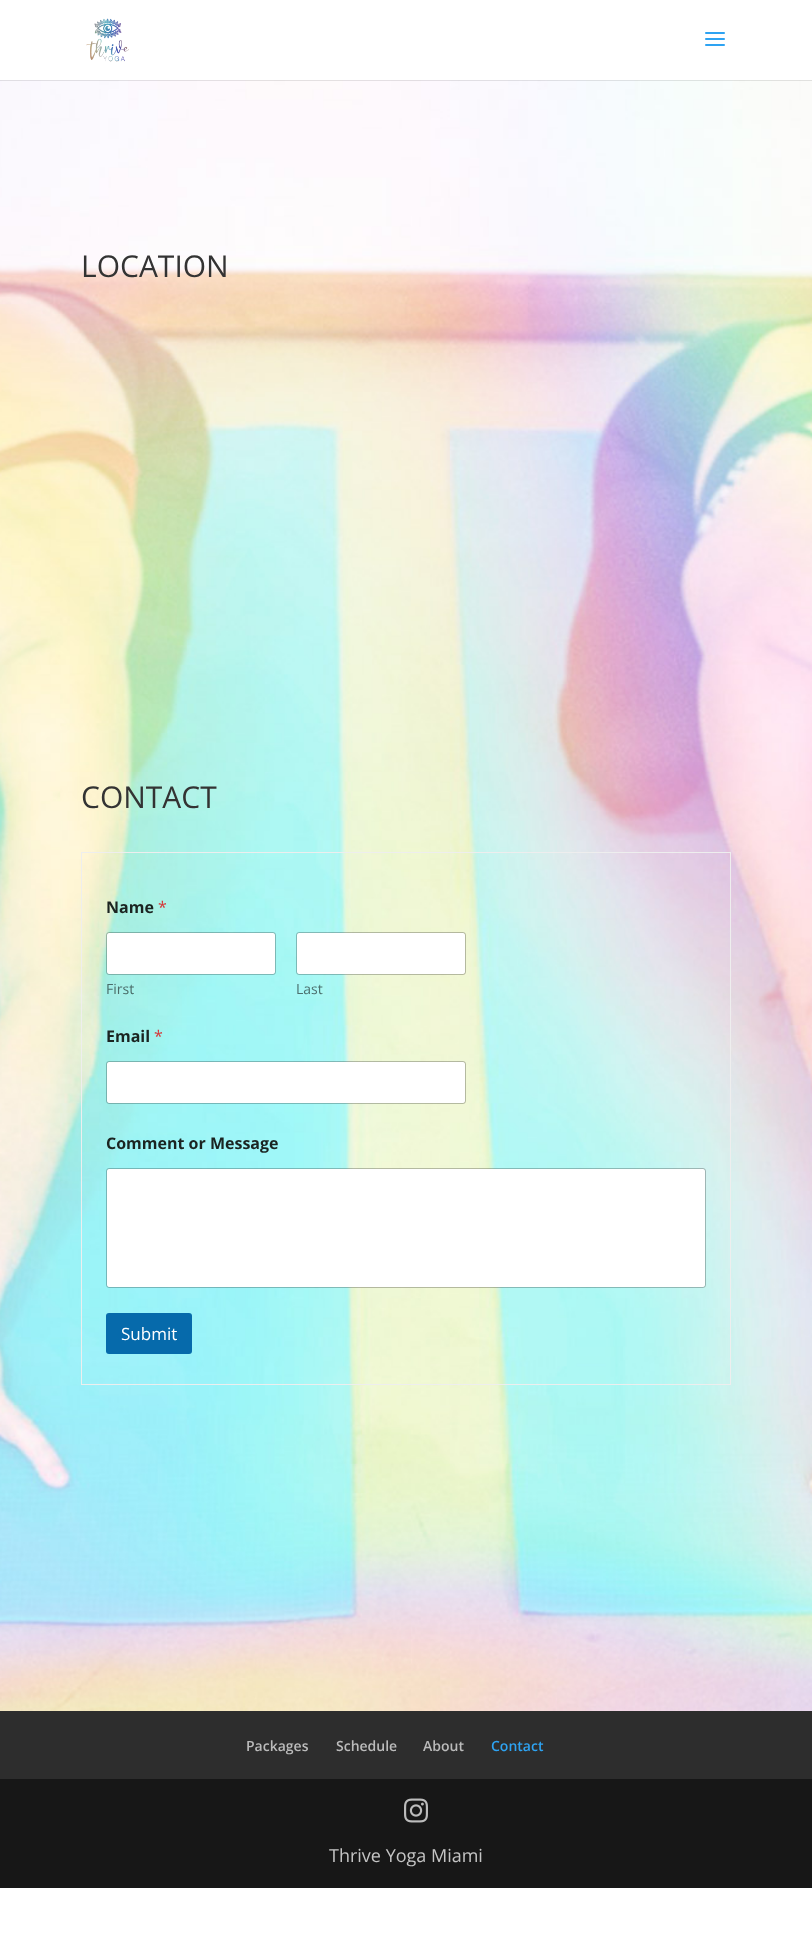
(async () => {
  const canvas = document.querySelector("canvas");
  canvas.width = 812;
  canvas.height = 1958;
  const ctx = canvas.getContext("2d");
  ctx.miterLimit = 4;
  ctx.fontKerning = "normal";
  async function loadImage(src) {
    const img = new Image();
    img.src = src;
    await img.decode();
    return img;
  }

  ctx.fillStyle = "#ffffff";
  ctx.fillRect(0, 0, 812, 1958);
  ctx.drawImage(await loadImage("img/3.png"), 0, 80, 812, 1631);
  ctx.fillStyle = "rgba(0, 0, 0, 0.1)";
  ctx.fillRect(0, 80, 812, 1);
  ctx.drawImage(await loadImage("img/1.png"), 86, 18, 43, 44);
  ctx.drawImage(await loadImage("img/2.png"), 705, 32, 20, 14);
  for (const [x, y, w, h, color] of [
    [81, 852, 650, 1, "#eeeeee"],
    [730, 852, 1, 533, "#eeeeee"],
    [81, 1384, 650, 1, "#eeeeee"],
    [81, 852, 1, 533, "#eeeeee"],
  ]) {
    ctx.fillStyle = color;
    ctx.fillRect(x, y, w, h);
  }
  ctx.fillStyle = "#ffffff";
  ctx.beginPath();
  ctx.roundRect(107, 933, 168, 41, 2);
  ctx.fill();
  ctx.beginPath();
  ctx.roundRect(106.5, 932.5, 169, 42, 2.5);
  ctx.strokeStyle = "rgba(0, 0, 0, 0.25)";
  ctx.stroke();
  ctx.beginPath();
  ctx.roundRect(297, 933, 168, 41, 2);
  ctx.fill();
  ctx.beginPath();
  ctx.roundRect(296.5, 932.5, 169, 42, 2.5);
  ctx.stroke();
  ctx.beginPath();
  ctx.roundRect(107, 1062, 358, 41, 2);
  ctx.fill();
  ctx.beginPath();
  ctx.roundRect(106.5, 1061.5, 359, 42, 2.5);
  ctx.stroke();
  ctx.beginPath();
  ctx.roundRect(107, 1169, 598, 118, 2);
  ctx.fill();
  ctx.beginPath();
  ctx.roundRect(106.5, 1168.5, 599, 119, 2.5);
  ctx.stroke();
  ctx.fillStyle = "#066aab";
  ctx.beginPath();
  ctx.roundRect(106, 1313, 86, 41, 3);
  ctx.fill();
  ctx.fillStyle = "#2d2d2d";
  ctx.fillRect(0, 1711, 812, 68);
  ctx.fillStyle = "#171717";
  ctx.fillRect(0, 1779, 812, 109);
  ctx.drawImage(await loadImage("img/4.png"), 404, 1798, 24, 25);
  ctx.font = "30px Open Sans";
  ctx.fillStyle = "#333333";
  ctx.fillText("LOCATION", 81, 277);
  ctx.fillText("CONTACT", 81, 808);
  ctx.font = "bold 16px Open Sans";
  ctx.fillStyle = "#1b2421";
  ctx.fillText("Name", 106, 913);
  ctx.font = "16px Open Sans";
  ctx.fillStyle = "#d63637";
  ctx.fillText("*", 158, 913);
  ctx.font = "14px Open Sans";
  ctx.fillStyle = "#4a6c68";
  ctx.fillText("First", 106, 994);
  ctx.fillStyle = "#4b706e";
  ctx.fillText("Last", 296, 994);
  ctx.font = "bold 16px Open Sans";
  ctx.fillStyle = "#1b2421";
  ctx.fillText("Email", 106, 1042);
  ctx.font = "16px Open Sans";
  ctx.fillStyle = "#d63637";
  ctx.fillText("*", 154, 1042);
  ctx.font = "bold 16px Open Sans";
  ctx.fillStyle = "#1b2421";
  ctx.fillText("Comment or Message", 106, 1149);
  ctx.font = "17px Open Sans";
  ctx.fillStyle = "#ffffff";
  ctx.fillText("Submit", 121, 1340);
  ctx.font = "600 14px Open Sans";
  ctx.fillStyle = "#bbbbbb";
  for (const [text, x, y] of [
    ["Packages", 246, 1751],
    ["Schedule", 336, 1751],
    ["About", 423, 1751],
  ]) {
    ctx.fillText(text, x, y);
  }
  ctx.fillStyle = "#2ea3f2";
  ctx.fillText("Contact", 491, 1751);
  ctx.font = "18px Open Sans";
  ctx.fillStyle = "#c4c4c4";
  ctx.fillText("Thrive Yoga Miami", 329, 1862);
})();
